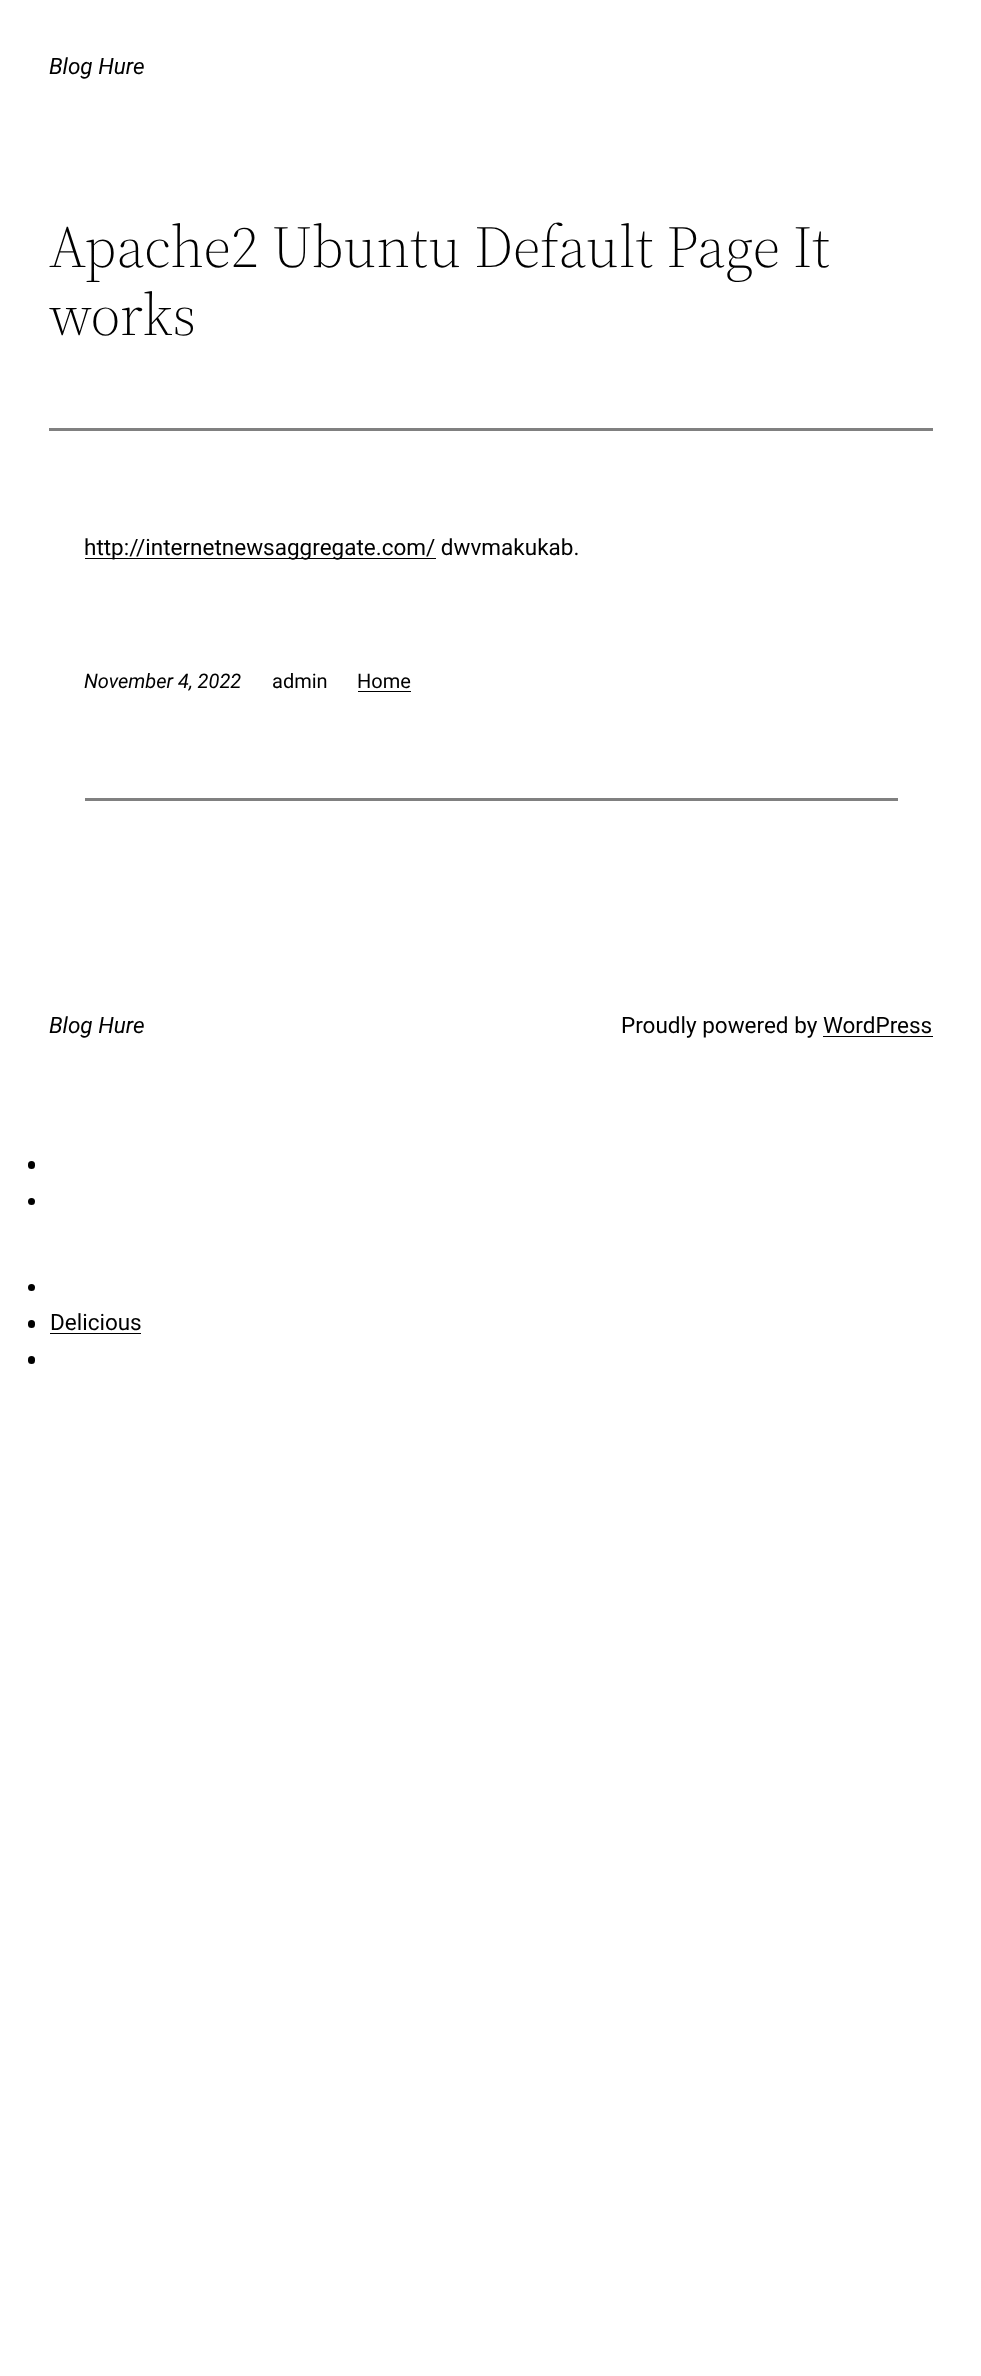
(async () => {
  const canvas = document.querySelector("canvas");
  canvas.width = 981;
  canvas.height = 2376;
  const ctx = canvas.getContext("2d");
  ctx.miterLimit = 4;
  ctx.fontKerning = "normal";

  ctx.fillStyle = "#ffffff";
  ctx.fillRect(0, 0, 981, 2376);
  for (const [x, y, w, h, color] of [
    [49, 428, 884, 3, "#808080"],
    [85, 558, 351, 1, "#000000"],
    [358, 691, 53, 1, "#000000"],
    [85, 798, 813, 3, "#808080"],
    [823, 1036, 110, 1, "#000000"],
  ]) {
    ctx.fillStyle = color;
    ctx.fillRect(x, y, w, h);
  }
  ctx.beginPath();
  ctx.roundRect(28, 1161, 7, 8, 3.5);
  ctx.fill();
  ctx.beginPath();
  ctx.arc(31.5, 1201.5, 3.5, 0, Math.PI * 2);
  ctx.fill();
  ctx.beginPath();
  ctx.arc(31.5, 1287.5, 3.5, 0, Math.PI * 2);
  ctx.fill();
  ctx.beginPath();
  ctx.roundRect(28, 1320, 7, 8, 3.5);
  ctx.fill();
  ctx.fillRect(50, 1333, 91, 1);
  ctx.beginPath();
  ctx.roundRect(28, 1356, 7, 8, 3.5);
  ctx.fill();
  ctx.font = "italic 22.5px Roboto";
  ctx.fillText("Blog Hure", 49, 74);
  ctx.font = "300 58.9px 'Source Serif 4'";
  ctx.fillText("Apache2 Ubuntu Default Page It", 49, 267);
  ctx.fillText("works", 49, 335);
  ctx.font = "22.5px Roboto";
  ctx.fillText("http://internetnewsaggregate.com/ dwvmakukab.", 84, 555);
  ctx.font = "italic 20px Roboto";
  ctx.fillText("November 4, 2022", 84, 688);
  ctx.font = "20px Roboto";
  ctx.fillText("admin", 272, 688);
  ctx.fillText("Home", 357, 688);
  ctx.font = "italic 22.5px Roboto";
  ctx.fillText("Blog Hure", 49, 1033);
  ctx.font = "22.5px Roboto";
  ctx.fillText("Proudly powered by WordPress", 621, 1033);
  ctx.fillText("Delicious", 50, 1330);
})();
